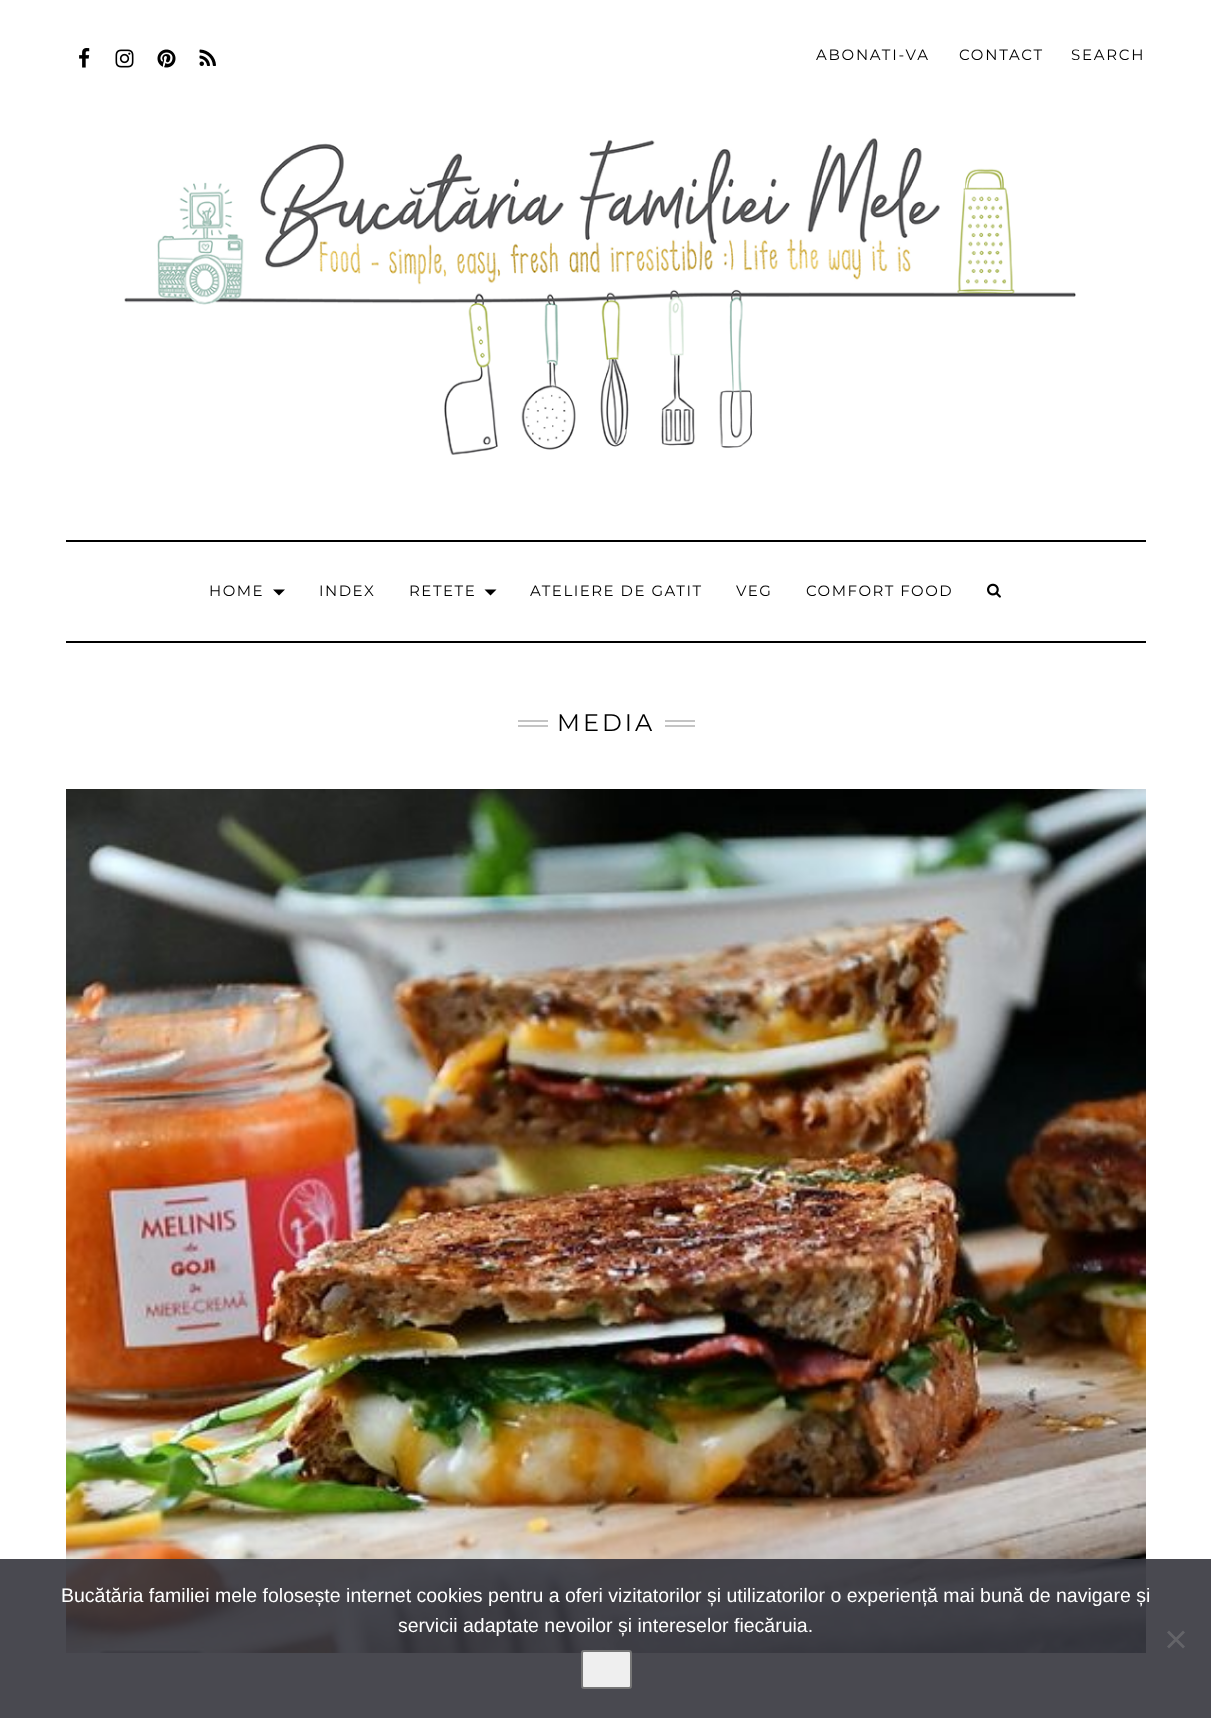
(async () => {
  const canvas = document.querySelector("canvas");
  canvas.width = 1211;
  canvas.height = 1718;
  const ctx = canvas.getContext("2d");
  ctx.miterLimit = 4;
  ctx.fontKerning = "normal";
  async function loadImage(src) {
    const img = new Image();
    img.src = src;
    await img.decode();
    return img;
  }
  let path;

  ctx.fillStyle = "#ffffff";
  ctx.fillRect(0, 0, 1211, 1718);
  ctx.drawImage(await loadImage("img/1.png"), 79, 48, 11, 20);
  ctx.drawImage(await loadImage("img/2.png"), 115, 49, 19, 19);
  ctx.drawImage(await loadImage("img/3.png"), 157, 49, 19, 19);
  ctx.drawImage(await loadImage("img/4.png"), 199, 49, 17, 17);
  ctx.drawImage(await loadImage("img/5.png"), 124, 138, 952, 317);
  ctx.fillStyle = "#000000";
  ctx.fillRect(66, 540, 1080, 2);
  ctx.fillRect(66, 641, 1080, 2);
  path = new Path2D("M273 589.5H285L279 595.5Z");
  ctx.fill(path);
  path = new Path2D("M484.5 589.5H496.5L490.5 595.5Z");
  ctx.fill(path);
  ctx.drawImage(await loadImage("img/6.png"), 987, 583, 14, 15);
  for (const [x, y, w, h, color] of [
    [518, 720, 30, 2, "#c4c4c4"],
    [518, 725, 30, 2, "#c4c4c4"],
    [665, 720, 30, 2, "#c4c4c4"],
    [665, 725, 30, 2, "#c4c4c4"],
  ]) {
    ctx.fillStyle = color;
    ctx.fillRect(x, y, w, h);
  }
  ctx.drawImage(await loadImage("img/7.png"), 66, 789, 1080, 864);
  ctx.fillStyle = "rgba(50, 50, 58, 0.89)";
  ctx.fillRect(0, 1559, 1211, 159);
  ctx.fillStyle = "#646468";
  path = new Path2D("M1183 1630.5L1185 1632.5L1169 1648.5L1167 1646.5Z");
  ctx.fill(path);
  path = new Path2D("M1167 1632.5L1169 1630.5L1185 1646.5L1183 1648.5Z");
  ctx.fill(path);
  ctx.fillStyle = "#efefef";
  ctx.beginPath();
  ctx.roundRect(582, 1651, 49, 37, 2);
  ctx.fill();
  ctx.strokeStyle = "#767676";
  ctx.lineWidth = 2;
  ctx.stroke();
  ctx.letterSpacing = "1.75px";
  ctx.font = "15px Montserrat";
  ctx.fillStyle = "#000000";
  for (const [text, x, y] of [
    ["ABONATI-VA", 816, 60],
    ["CONTACT", 959, 60],
    ["SEARCH", 1071, 60],
  ]) {
    ctx.fillText(text, x, y);
  }
  ctx.letterSpacing = "1.5px";
  for (const [text, x, y] of [
    ["HOME", 209, 596],
    ["INDEX", 319, 596],
    ["RETETE", 409, 596],
    ["ATELIERE DE GATIT", 530, 596],
    ["VEG", 736, 596],
    ["COMFORT FOOD", 806, 596],
  ]) {
    ctx.fillText(text, x, y);
  }
  ctx.letterSpacing = "3px";
  ctx.font = "24px Montserrat";
  ctx.fillText("MEDIA", 557, 731);
  ctx.letterSpacing = "0px";
  ctx.font = "19.5px Liberation Sans";
  ctx.fillStyle = "#ffffff";
  ctx.fillText("Bucătăria familiei mele folosește internet cookies pentru a oferi vizitatorilor și utilizatorilor o experiență mai bună de navigare și", 61, 1602);
  ctx.fillText("servicii adaptate nevoilor și intereselor fiecăruia.", 398, 1632);
})();
